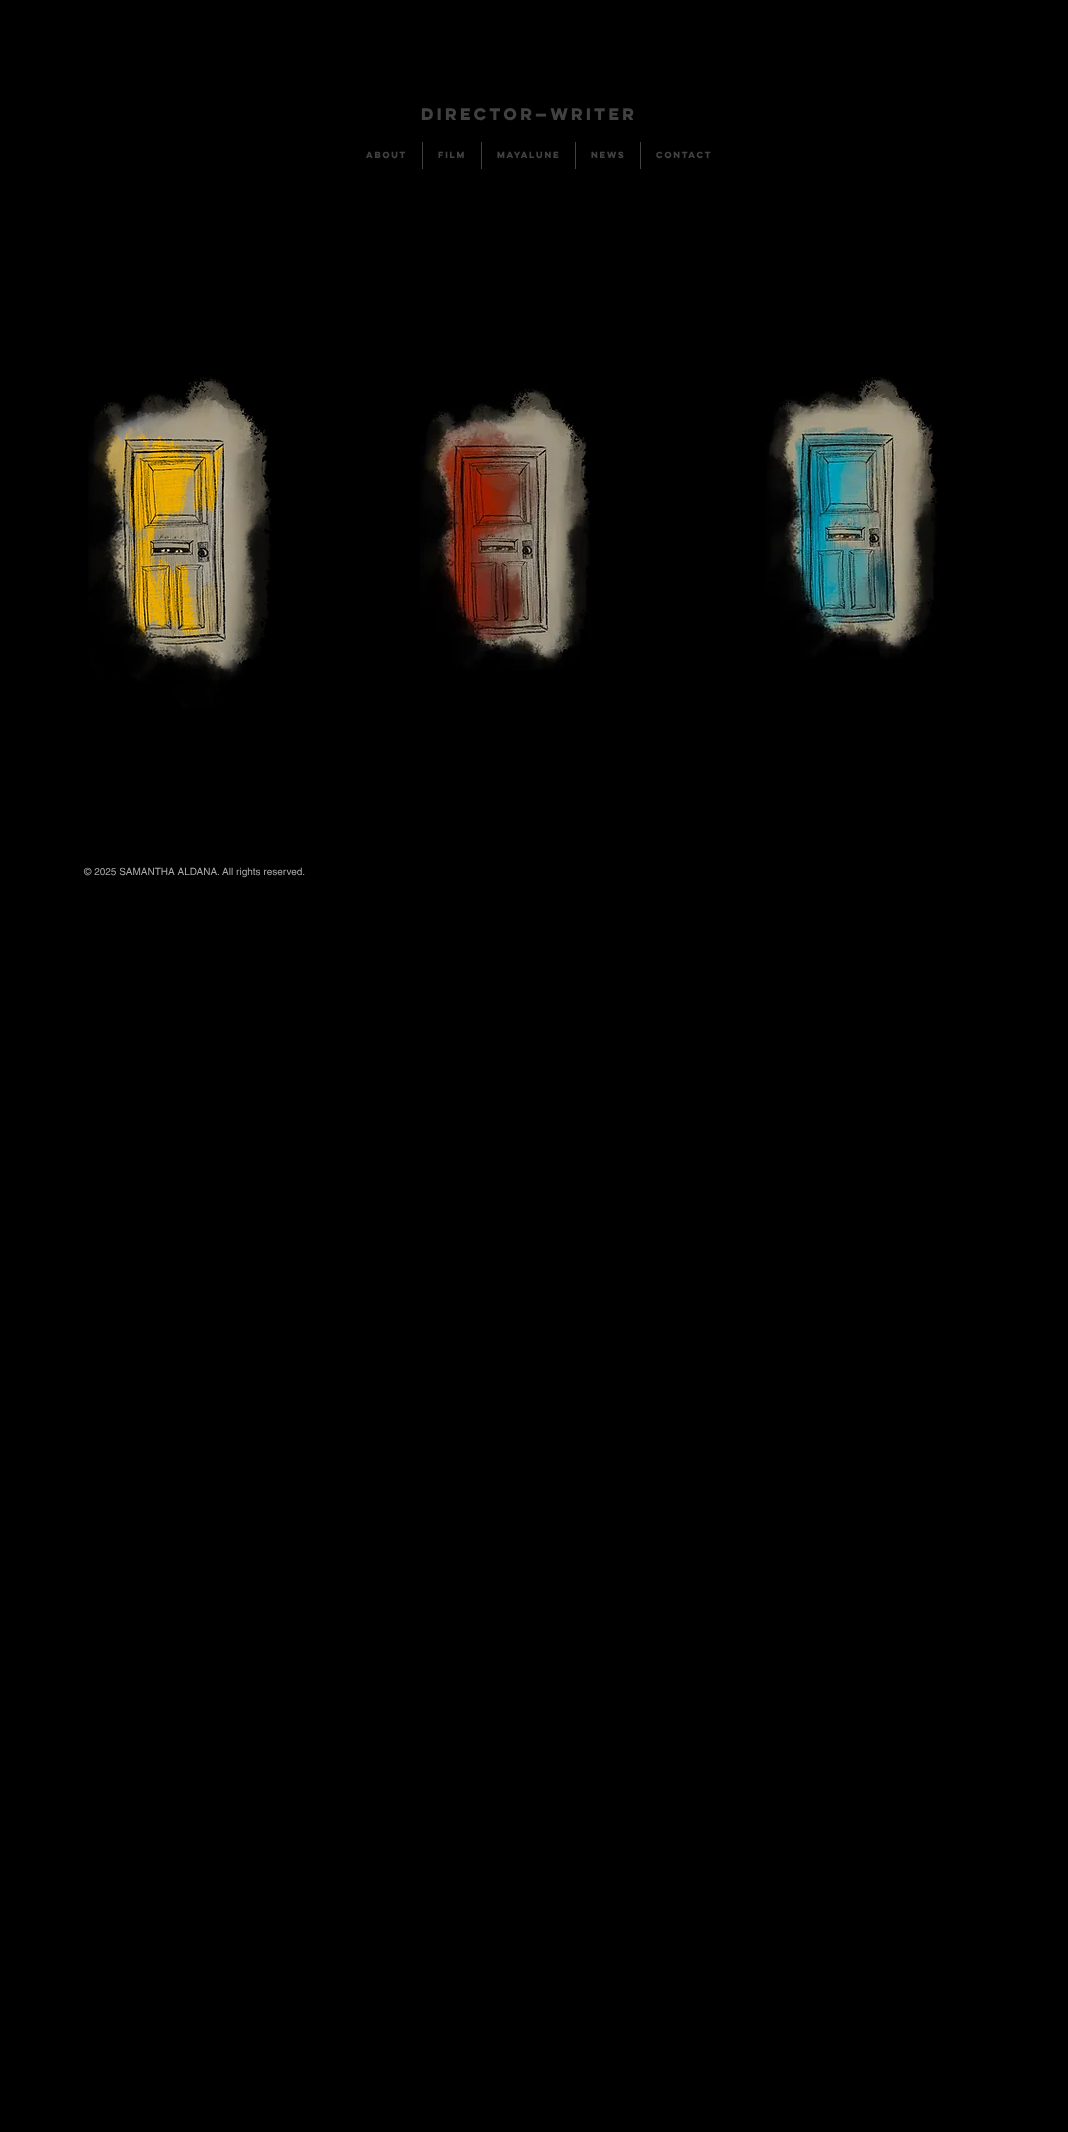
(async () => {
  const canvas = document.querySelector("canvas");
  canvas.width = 1068;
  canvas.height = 2132;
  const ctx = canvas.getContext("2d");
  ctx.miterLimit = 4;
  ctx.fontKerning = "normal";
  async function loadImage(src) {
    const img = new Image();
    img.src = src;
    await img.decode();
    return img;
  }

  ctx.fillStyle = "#000000";
  ctx.fillRect(0, 0, 1068, 2132);
  for (const [x, y, w, h, color] of [
    [422, 142, 1, 27, "#414141"],
    [481, 142, 1, 27, "#414141"],
    [575, 142, 1, 27, "#414141"],
    [640, 142, 1, 27, "#414141"],
  ]) {
    ctx.fillStyle = color;
    ctx.fillRect(x, y, w, h);
  }
  ctx.drawImage(await loadImage("img/1.png"), 88, 363, 377, 345);
  ctx.drawImage(await loadImage("img/2.png"), 420, 363, 171, 307);
  ctx.drawImage(await loadImage("img/3.png"), 766, 377, 172, 282);
  ctx.font = "bold 15px 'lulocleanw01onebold'";
  ctx.fillText("DIRECTOR—WRITER", 421, 120);
  ctx.font = "bold 8px 'lulocleanw01onebold'";
  for (const [text, x, y] of [
    ["About", 366, 158],
    ["Film", 438, 158],
    ["MAYALUNE", 497, 158],
    ["News", 591, 158],
    ["Contact", 656, 158],
  ]) {
    ctx.fillText(text, x, y);
  }
  ctx.font = "10px helvetica";
  ctx.fillStyle = "#a8a8a7";
  ctx.fillText("© 2025 SAMANTHA ALDANA. All rights reserved.", 84, 875);
})();
